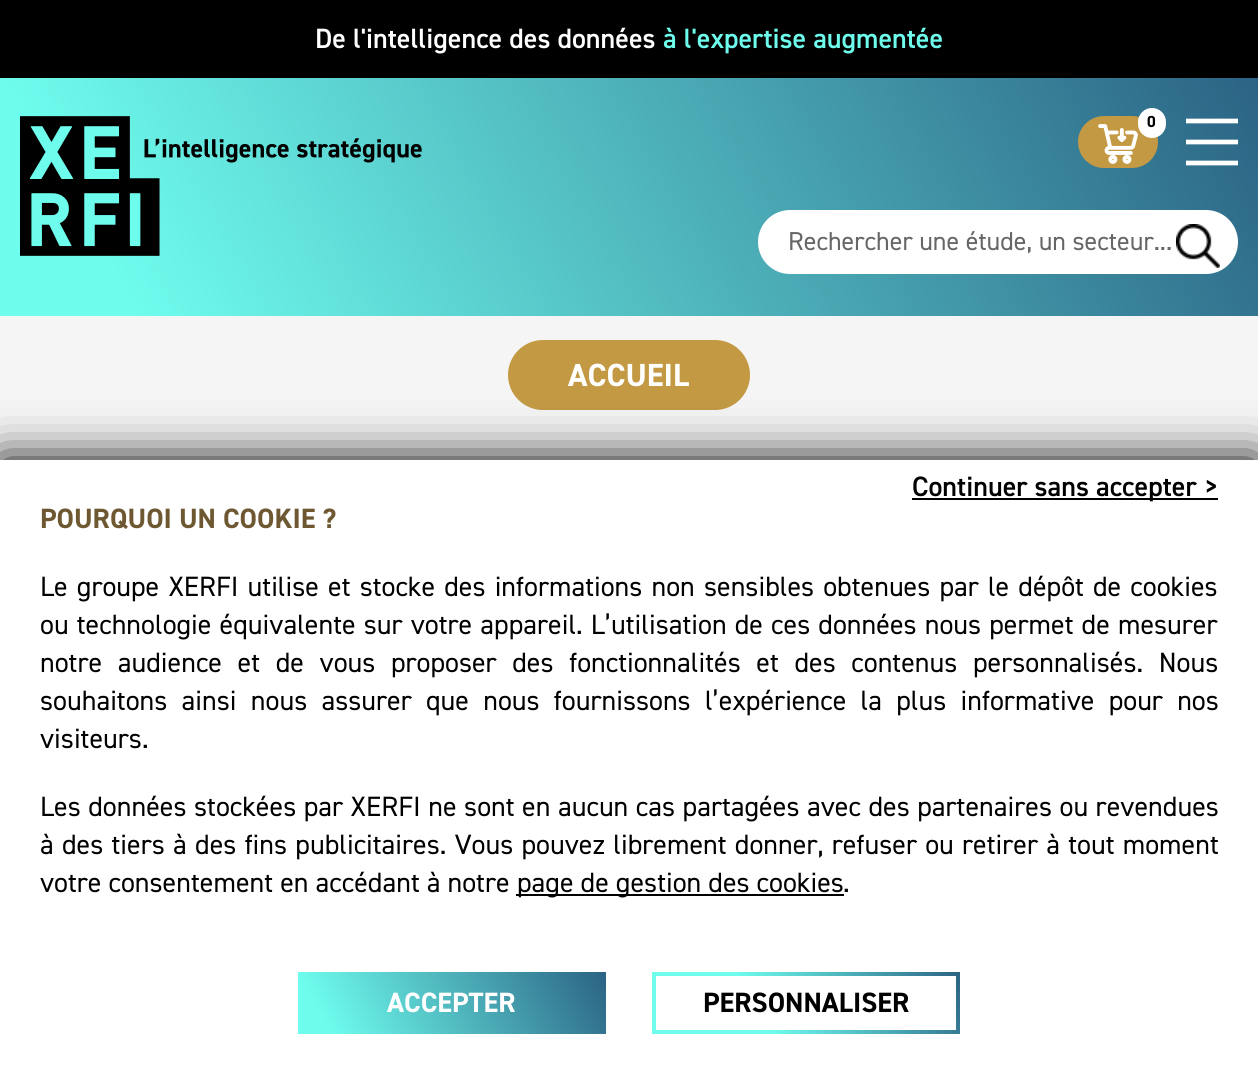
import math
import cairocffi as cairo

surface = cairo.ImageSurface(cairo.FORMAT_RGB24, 1258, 1084)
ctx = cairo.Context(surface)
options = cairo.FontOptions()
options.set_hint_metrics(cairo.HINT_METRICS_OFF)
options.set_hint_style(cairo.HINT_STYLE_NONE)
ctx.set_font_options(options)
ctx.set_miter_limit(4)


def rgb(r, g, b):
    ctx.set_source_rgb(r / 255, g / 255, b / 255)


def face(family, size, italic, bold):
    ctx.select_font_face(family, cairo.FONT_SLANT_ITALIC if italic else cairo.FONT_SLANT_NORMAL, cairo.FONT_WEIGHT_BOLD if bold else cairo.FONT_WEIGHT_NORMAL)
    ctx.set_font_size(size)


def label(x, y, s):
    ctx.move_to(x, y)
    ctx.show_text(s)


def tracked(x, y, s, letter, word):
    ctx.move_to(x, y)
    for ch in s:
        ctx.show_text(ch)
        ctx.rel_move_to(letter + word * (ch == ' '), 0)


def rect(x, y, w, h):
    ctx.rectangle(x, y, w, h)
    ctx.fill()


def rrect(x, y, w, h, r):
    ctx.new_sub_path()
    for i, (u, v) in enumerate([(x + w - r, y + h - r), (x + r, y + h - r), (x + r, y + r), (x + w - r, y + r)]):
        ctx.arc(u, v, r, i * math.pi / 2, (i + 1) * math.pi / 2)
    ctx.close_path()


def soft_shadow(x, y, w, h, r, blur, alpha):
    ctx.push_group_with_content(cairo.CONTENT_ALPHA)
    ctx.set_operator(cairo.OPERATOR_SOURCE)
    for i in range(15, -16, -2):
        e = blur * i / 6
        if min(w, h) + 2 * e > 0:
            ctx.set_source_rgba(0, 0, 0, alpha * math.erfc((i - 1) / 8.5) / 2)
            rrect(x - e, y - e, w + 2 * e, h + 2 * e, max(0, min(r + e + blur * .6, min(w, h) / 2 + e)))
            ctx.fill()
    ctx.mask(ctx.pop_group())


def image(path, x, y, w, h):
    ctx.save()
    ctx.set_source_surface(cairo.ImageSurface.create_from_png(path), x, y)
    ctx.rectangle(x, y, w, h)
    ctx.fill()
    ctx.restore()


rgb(245, 245, 245)
ctx.paint()
rgb(0, 0, 0)
rect(0, 0, 1258, 78)
face('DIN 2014 SemiBold', 28, 0, 0)
rgb(255, 255, 255)
label(315, 48, 'De l\'intelligence des données')
rgb(110, 252, 237)
label(663, 48, 'à l\'expertise augmentée')
gradient = cairo.LinearGradient(105, 498, 1153, -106)
gradient.add_color_stop_rgba(0.1, 0.431, 0.988, 0.929, 1)
gradient.add_color_stop_rgba(1, 0.169, 0.388, 0.518, 1)
ctx.set_source(gradient)
rect(0, 78, 1258, 238)
image('image0.png', 20, 116, 402, 140)
rgb(195, 153, 68)
rrect(1078, 116, 80, 52, 26)
ctx.fill()
rgb(255, 255, 255)
rrect(1138, 108, 28, 30, 14)
ctx.fill()
face('DIN 2014', 16, 0, 1)
rgb(0, 0, 0)
label(1147, 127, '0')
image('image1.png', 1098, 124, 40, 40)
ctx.new_path()
ctx.move_to(1186, 121)
ctx.line_to(1238, 121)
ctx.move_to(1186, 142)
ctx.line_to(1238, 142)
ctx.move_to(1186, 163)
ctx.line_to(1238, 163)
rgb(255, 255, 255)
ctx.set_line_width(4.7)
ctx.stroke()
rrect(758, 210, 480, 64, 32)
ctx.fill()
face('DIN 2014', 26, 0, 0)
rgb(102, 102, 102)
label(788, 250, 'Rechercher une étude, un secteur...')
image('image2.png', 1176, 224, 44, 44)
rgb(195, 153, 68)
rrect(508, 340, 242, 70, 35)
ctx.fill()
face('DIN 2014', 32, 0, 1)
rgb(255, 255, 255)
label(568, 386, 'ACCUEIL')
rgb(0, 0, 0)
soft_shadow(0, 460, 1258, 624, 0, 24, 1)
rgb(255, 255, 255)
rect(0, 460, 1258, 624)
rgb(0, 0, 0)
rect(912, 498, 306, 2)
face('DIN 2014 SemiBold', 28, 0, 0)
label(912, 496, 'Continuer sans accepter >')
face('DIN 2014', 28, 0, 1)
rgb(109, 88, 50)
label(40, 528, 'POURQUOI UN COOKIE ?')
face('DIN 2014', 28, 0, 0)
rgb(0, 0, 0)
tracked(40, 596, 'Le groupe XERFI utilise et stocke des informations non sensibles obtenues par le dépôt de cookies', 0, 2.1)
tracked(40, 634, 'ou technologie équivalente sur votre appareil. L’utilisation de ces données nous permet de mesurer', 0, 1.1)
tracked(40, 672, 'notre audience et de vous proposer des fonctionnalités et des contenus personnalisés. Nous', 0, 8.6)
tracked(40, 710, 'souhaitons ainsi nous assurer que nous fournissons l’expérience la plus informative pour nos', 0, 7.25)
label(40, 748, 'visiteurs.')
tracked(40, 816, 'Les données stockées par XERFI ne sont en aucun cas partagées avec des partenaires ou revendues', 0, 0.5)
tracked(40, 854, 'à des tiers à des fins publicitaires. Vous pouvez librement donner, refuser ou retirer à tout moment', 0, 1.25)
label(40, 892, 'votre consentement en accédant à notre')
rect(516, 894, 328, 2)
label(517, 892, 'page de gestion des cookies')
label(843, 892, '.')
gradient = cairo.LinearGradient(323, 1077, 581, 929)
gradient.add_color_stop_rgba(0.1, 0.431, 0.988, 0.929, 1)
gradient.add_color_stop_rgba(1, 0.169, 0.388, 0.518, 1)
ctx.set_source(gradient)
rect(298, 972, 308, 62)
face('DIN 2014', 28, 0, 1)
rgb(255, 255, 255)
label(387, 1012, 'ACCEPTER')
gradient = cairo.LinearGradient(677, 1077, 935, 929)
gradient.add_color_stop_rgba(0.35, 0.431, 0.988, 0.929, 1)
gradient.add_color_stop_rgba(1, 0.169, 0.388, 0.518, 1)
ctx.set_source(gradient)
rect(652, 972, 308, 62)
rgb(255, 255, 255)
rect(656, 976, 300, 54)
rgb(0, 0, 0)
label(703, 1012, 'PERSONNALISER')
surface.write_to_png('render.png')
